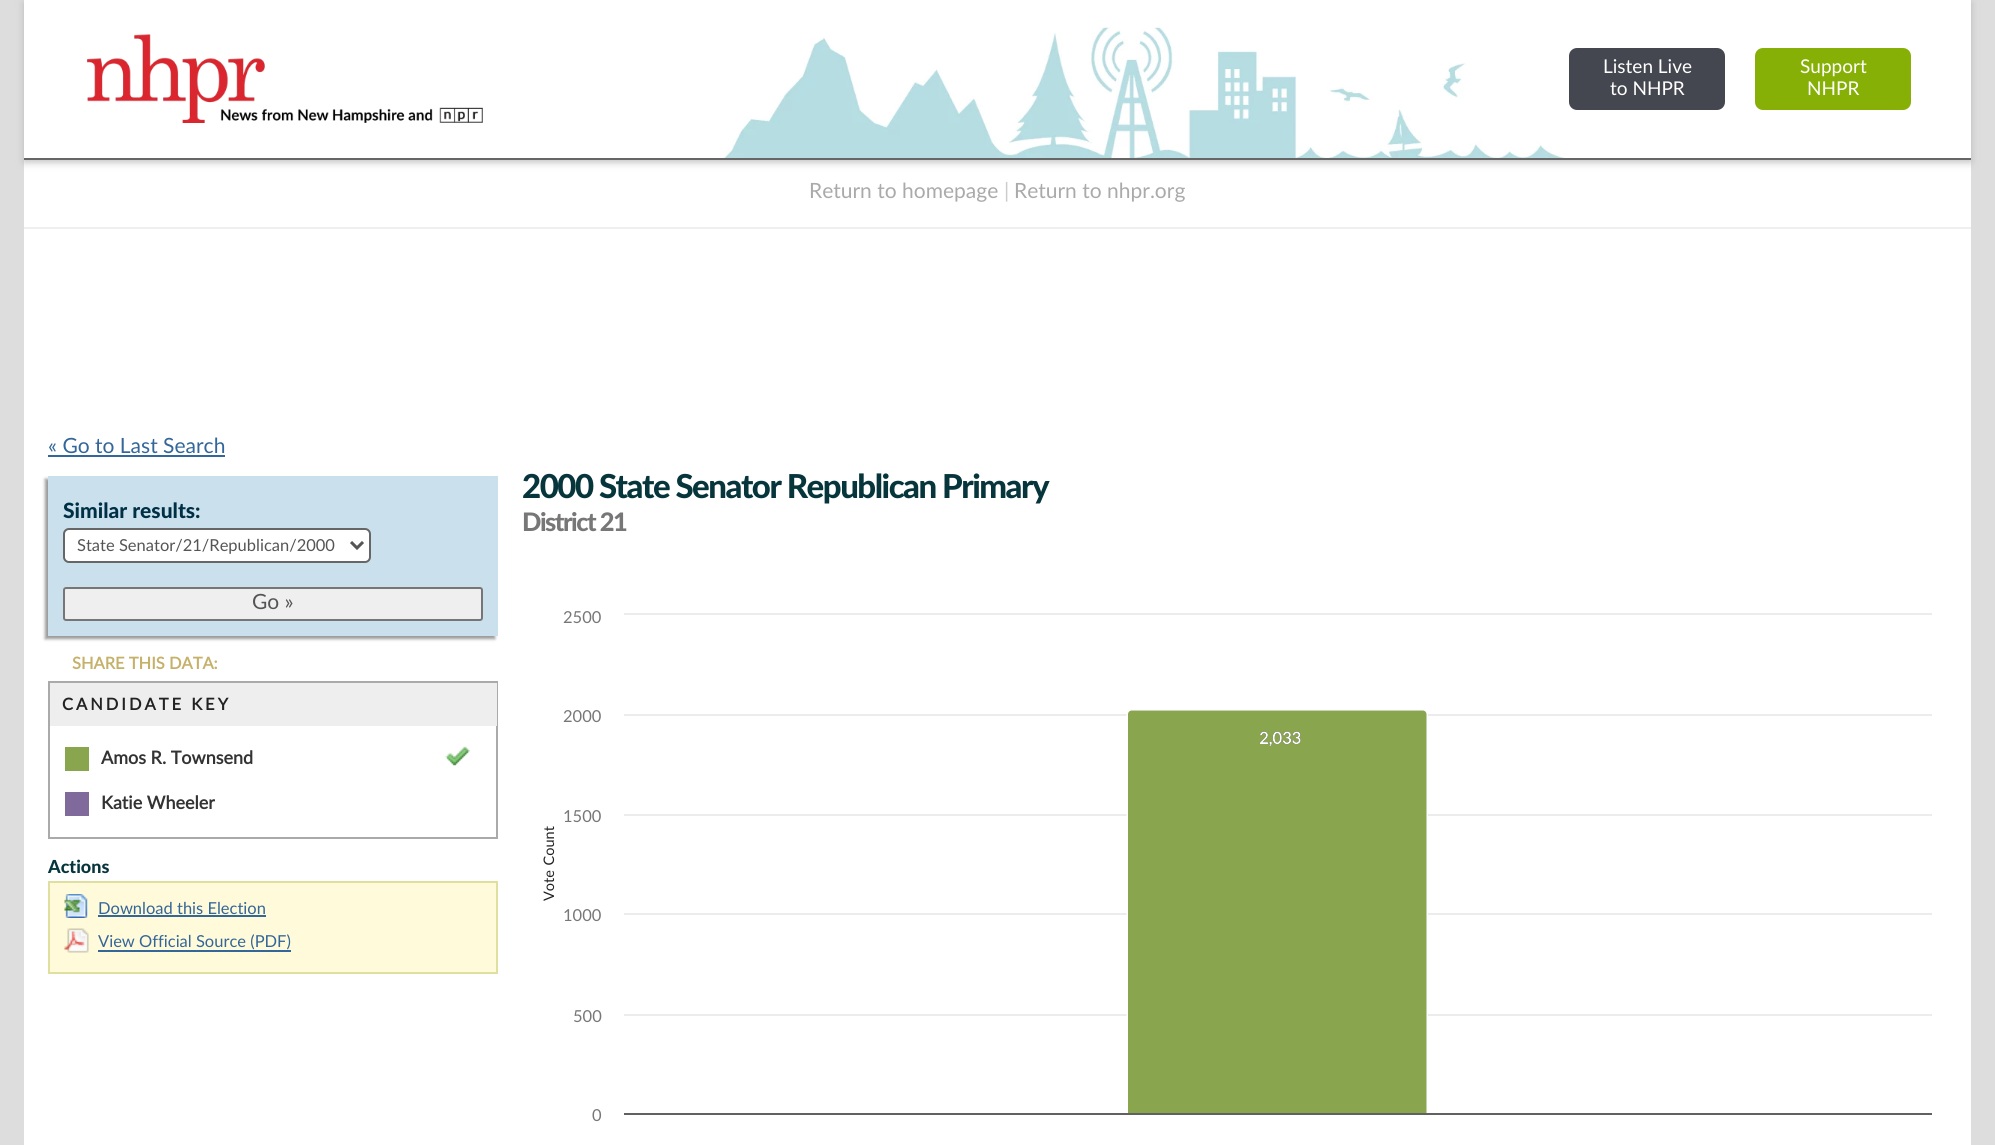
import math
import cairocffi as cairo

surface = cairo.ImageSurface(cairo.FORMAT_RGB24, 1995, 1145)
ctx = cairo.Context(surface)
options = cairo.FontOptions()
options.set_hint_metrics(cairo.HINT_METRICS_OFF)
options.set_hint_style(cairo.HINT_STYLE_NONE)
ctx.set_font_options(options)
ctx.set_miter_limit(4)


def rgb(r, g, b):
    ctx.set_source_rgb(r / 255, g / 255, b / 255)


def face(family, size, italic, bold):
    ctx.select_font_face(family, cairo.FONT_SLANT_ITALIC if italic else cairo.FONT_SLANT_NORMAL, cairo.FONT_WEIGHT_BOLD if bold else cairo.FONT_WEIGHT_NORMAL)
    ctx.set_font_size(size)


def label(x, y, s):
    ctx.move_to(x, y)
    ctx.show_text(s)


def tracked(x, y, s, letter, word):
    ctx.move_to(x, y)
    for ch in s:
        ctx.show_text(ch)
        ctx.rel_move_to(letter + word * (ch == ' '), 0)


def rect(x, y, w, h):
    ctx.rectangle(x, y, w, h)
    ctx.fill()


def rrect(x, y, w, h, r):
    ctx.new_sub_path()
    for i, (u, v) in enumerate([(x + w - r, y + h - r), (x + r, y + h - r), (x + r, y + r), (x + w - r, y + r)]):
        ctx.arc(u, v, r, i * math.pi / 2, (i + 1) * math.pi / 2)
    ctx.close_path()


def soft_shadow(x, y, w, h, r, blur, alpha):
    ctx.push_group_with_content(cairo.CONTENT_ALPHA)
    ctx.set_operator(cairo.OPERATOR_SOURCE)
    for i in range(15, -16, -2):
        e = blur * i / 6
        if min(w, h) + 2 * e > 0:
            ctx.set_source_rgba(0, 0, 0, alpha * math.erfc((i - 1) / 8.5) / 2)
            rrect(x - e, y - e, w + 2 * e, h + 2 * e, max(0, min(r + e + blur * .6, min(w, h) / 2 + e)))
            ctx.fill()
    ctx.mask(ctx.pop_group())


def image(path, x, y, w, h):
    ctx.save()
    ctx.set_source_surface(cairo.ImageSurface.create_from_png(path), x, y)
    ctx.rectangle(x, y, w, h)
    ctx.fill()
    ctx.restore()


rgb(221, 221, 221)
ctx.paint()
rgb(255, 255, 255)
rect(24, 0, 1947, 1145)
ctx.save()
ctx.set_fill_rule(cairo.FILL_RULE_EVEN_ODD)
ctx.new_path()
ctx.move_to(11, 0)
ctx.line_to(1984, 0)
ctx.line_to(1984, 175)
ctx.line_to(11, 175)
ctx.close_path()
ctx.move_to(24, 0)
ctx.line_to(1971, 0)
ctx.line_to(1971, 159)
ctx.line_to(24, 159)
ctx.close_path()
ctx.clip()
rgb(187, 187, 187)
soft_shadow(24, 3, 1947, 159, 0, 4, 1)
ctx.restore()
image('image0.png', 723, 26, 847, 132)
rgb(102, 102, 102)
rect(24, 158, 1947, 2)
image('image1.png', 87, 34, 396, 89)
rgb(68, 71, 80)
rrect(1569, 48, 156, 62, 8)
ctx.fill()
face('Lato', 19, 0, 0)
rgb(255, 255, 255)
label(1603, 73, 'Listen Live')
label(1610, 95, 'to NHPR')
rgb(135, 176, 6)
rrect(1755, 48, 156, 62, 8)
ctx.fill()
rgb(255, 255, 255)
label(1800, 73, 'Support')
label(1807, 95, 'NHPR')
rgb(239, 239, 239)
rect(24, 227, 1947, 2)
face('Lato', 21, 0, 0)
rgb(170, 170, 170)
label(809, 198, 'Return to homepage')
rgb(204, 204, 204)
label(1004, 198, '|')
rgb(170, 170, 170)
label(1014, 198, 'Return to nhpr.org')
rgb(51, 102, 153)
label(48, 453, '« Go to Last Search')
rect(48, 455, 177, 2)
rgb(153, 153, 153)
soft_shadow(45, 479, 450, 160, 0, 1.5, 1)
rgb(203, 224, 237)
rect(48, 476, 450, 160)
face('Lato Black', 21, 0, 0)
rgb(0, 48, 69)
label(63, 518, 'Similar results:')
rgb(255, 255, 255)
rrect(64, 529, 306, 33, 5)
ctx.fill_preserve()
rgb(102, 102, 102)
ctx.stroke()
ctx.new_path()
ctx.move_to(351, 542)
ctx.line_to(357, 548)
ctx.line_to(363, 542)
rgb(85, 85, 85)
ctx.set_line_width(3)
ctx.stroke()
face('Lato', 16.5, 0, 0)
label(77, 551, 'State Senator/21/Republican/2000')
rgb(239, 239, 239)
rrect(64, 588, 418, 32, 2)
ctx.fill_preserve()
rgb(118, 118, 118)
ctx.set_line_width(2)
ctx.stroke()
face('Lato', 21, 0, 0)
rgb(85, 85, 85)
label(252, 609, 'Go »')
face('Lato', 16.5, 0, 1)
rgb(198, 177, 107)
label(72, 669, 'SHARE THIS DATA:')
ctx.rectangle(49, 682, 448, 156)
rgb(170, 170, 170)
ctx.stroke()
rgb(238, 238, 238)
rect(50, 683, 447, 43)
rgb(34, 34, 34)
tracked(62, 710, 'CANDIDATE KEY', 3, 0)
image('image2.png', 445, 746, 25, 20)
rgb(137, 165, 78)
rect(65, 747, 24, 24)
face('Lato', 18, 0, 1)
rgb(51, 51, 51)
label(101, 764, 'Amos R. Townsend')
rgb(128, 105, 155)
rect(65, 792, 24, 24)
rgb(51, 51, 51)
label(101, 809, 'Katie Wheeler')
face('Lato Black', 18, 0, 0)
rgb(6, 53, 60)
label(48, 873, 'Actions')
rgb(255, 250, 218)
ctx.rectangle(49, 882, 448, 91)
ctx.fill_preserve()
rgb(223, 224, 160)
ctx.stroke()
image('image3.png', 64, 894, 24, 24)
face('Lato', 16.5, 0, 0)
rgb(51, 102, 153)
label(98, 914, 'Download this Election')
rect(98, 915, 168, 2)
image('image4.png', 64, 928, 25, 25)
label(98, 947, 'View Official Source (PDF)')
rect(98, 950, 193, 2)
face('Lato Black', 33, 0, 0)
rgb(6, 53, 60)
tracked(522, 498, '2000 State Senator Republican Primary', -1.5, 0)
face('Lato Black', 25.5, 0, 0)
rgb(119, 119, 119)
tracked(522, 531, 'District 21', -1.5, 0)
face('Lato', 16.5, 0, 0)
label(563, 623, '2500')
image('image5.png', 624, 613, 1308, 502)
label(563, 722, '2000')
face('Lato', 16.5, 0, 1)
rgb(0, 0, 0)
label(1259, 744, '2,033')
rgb(255, 255, 255)
label(1259, 744, '2,033')
face('Lato', 16.5, 0, 0)
rgb(119, 119, 119)
label(563, 822, '1500')
face('Lato', 14.5, 0, 0)
rgb(34, 34, 34)
ctx.save()
ctx.translate(554, 901)
ctx.rotate(-90 * math.pi / 180)
tracked(0, 0, 'Vote Count', 0, 1)
ctx.restore()
face('Lato', 16.5, 0, 0)
rgb(119, 119, 119)
label(563, 921, '1000')
label(573, 1022, '500')
label(592, 1121, '0')
surface.write_to_png('render.png')
